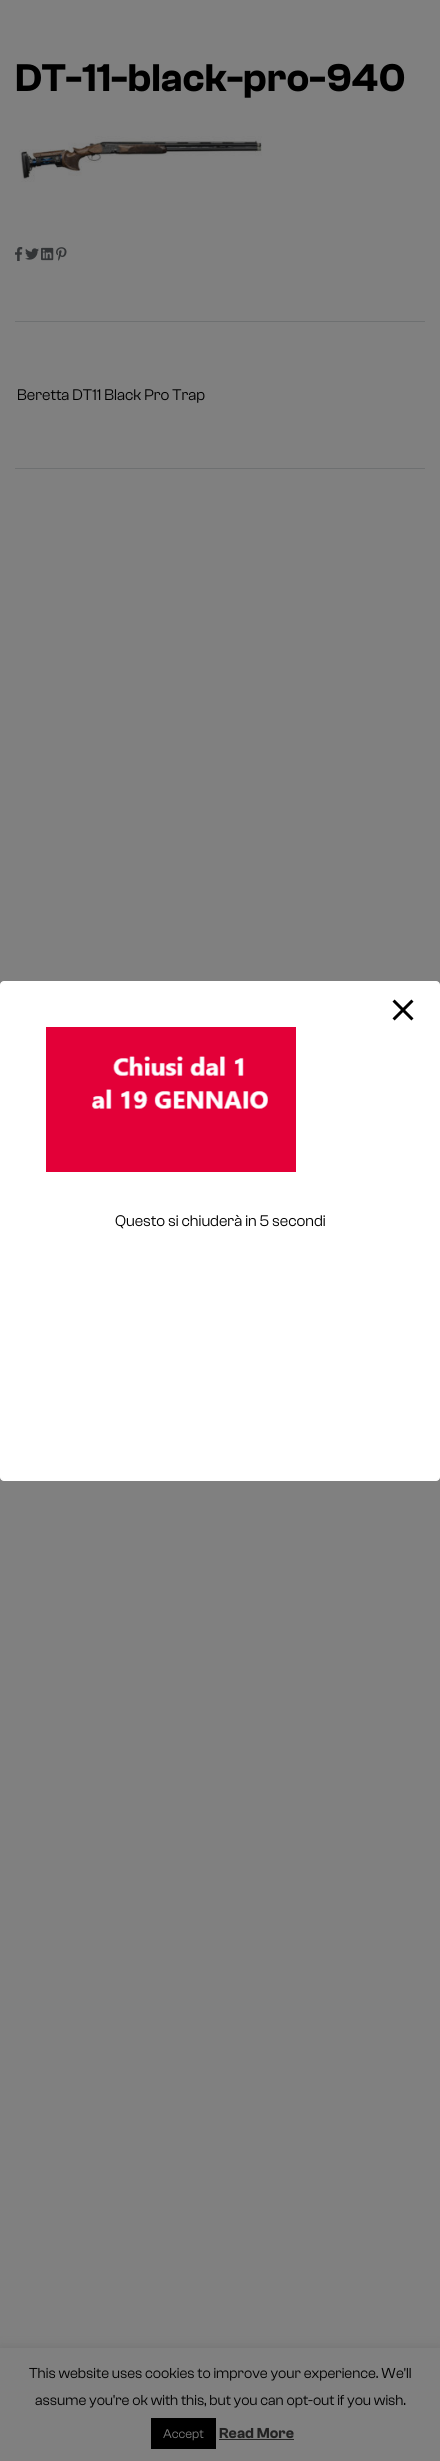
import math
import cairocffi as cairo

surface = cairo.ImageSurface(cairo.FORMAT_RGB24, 440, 2461)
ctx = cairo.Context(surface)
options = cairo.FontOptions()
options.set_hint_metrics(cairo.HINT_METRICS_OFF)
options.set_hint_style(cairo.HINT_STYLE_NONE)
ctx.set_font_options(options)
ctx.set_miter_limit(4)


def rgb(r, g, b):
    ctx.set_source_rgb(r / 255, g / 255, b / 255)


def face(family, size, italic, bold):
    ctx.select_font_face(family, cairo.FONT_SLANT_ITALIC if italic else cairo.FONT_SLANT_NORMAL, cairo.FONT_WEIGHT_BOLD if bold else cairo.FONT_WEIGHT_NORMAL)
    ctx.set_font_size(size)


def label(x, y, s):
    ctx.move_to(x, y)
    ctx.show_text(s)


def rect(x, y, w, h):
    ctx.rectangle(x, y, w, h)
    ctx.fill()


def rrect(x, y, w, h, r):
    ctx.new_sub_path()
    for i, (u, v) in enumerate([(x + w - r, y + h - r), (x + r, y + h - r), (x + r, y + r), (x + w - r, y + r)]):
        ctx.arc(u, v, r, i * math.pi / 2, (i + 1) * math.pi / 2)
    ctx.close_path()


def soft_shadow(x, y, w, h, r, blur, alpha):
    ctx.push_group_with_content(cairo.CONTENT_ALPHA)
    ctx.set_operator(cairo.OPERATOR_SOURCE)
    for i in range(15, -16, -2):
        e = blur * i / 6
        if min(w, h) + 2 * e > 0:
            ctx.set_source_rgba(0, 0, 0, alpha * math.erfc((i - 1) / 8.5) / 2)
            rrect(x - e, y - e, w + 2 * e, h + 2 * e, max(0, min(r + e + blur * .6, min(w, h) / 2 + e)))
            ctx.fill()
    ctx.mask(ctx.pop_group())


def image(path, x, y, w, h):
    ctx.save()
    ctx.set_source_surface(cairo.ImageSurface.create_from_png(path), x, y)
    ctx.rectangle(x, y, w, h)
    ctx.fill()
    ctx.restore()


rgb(128, 128, 128)
ctx.paint()
face('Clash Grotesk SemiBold', 40, 0, 0)
rgb(0, 0, 0)
label(15, 91, 'DT-11-black-pro-940')
image('image0.png', 19, 136, 243, 46)
image('image1.png', 15, 247, 8, 14)
image('image2.png', 25, 248, 14, 12)
image('image3.png', 41, 247, 13, 14)
image('image4.png', 56, 247, 11, 14)
rgb(110, 112, 113)
rect(15, 321, 410, 1)
rect(15, 468, 410, 1)
face('Clash Grotesk', 16, 0, 0)
rgb(0, 0, 0)
label(17, 400, 'Beretta DT11 Black Pro Trap')
rgb(255, 255, 255)
rrect(0.5, 981.5, 439, 499, 3.5)
ctx.fill_preserve()
ctx.set_line_width(1)
ctx.stroke()
image('image5.png', 392, 999, 22, 22)
image('image6.png', 46, 1027, 250, 145)
rgb(0, 0, 0)
label(115, 1226, 'Questo si chiuderà in 5 secondi')
rgb(86, 86, 86)
soft_shadow(0, 2347, 440, 113, 0, 5, 0.3)
rgb(128, 128, 128)
rect(0, 2348, 440, 113)
face('Clash Grotesk', 15, 0, 0)
rgb(0, 0, 0)
label(29, 2378, 'This website uses cookies to improve your experience. We\'ll')
label(35, 2405, 'assume you\'re ok with this, but you can opt-out if you wish.')
rect(151, 2418, 65, 31)
face('Clash Grotesk', 13, 0, 0)
rgb(128, 128, 128)
label(163, 2438, 'Accept')
face('Clash Grotesk SemiBold', 15, 0, 0)
rgb(34, 34, 34)
label(219, 2438, 'Read More')
rect(219, 2439, 75, 1)
surface.write_to_png('render.png')
